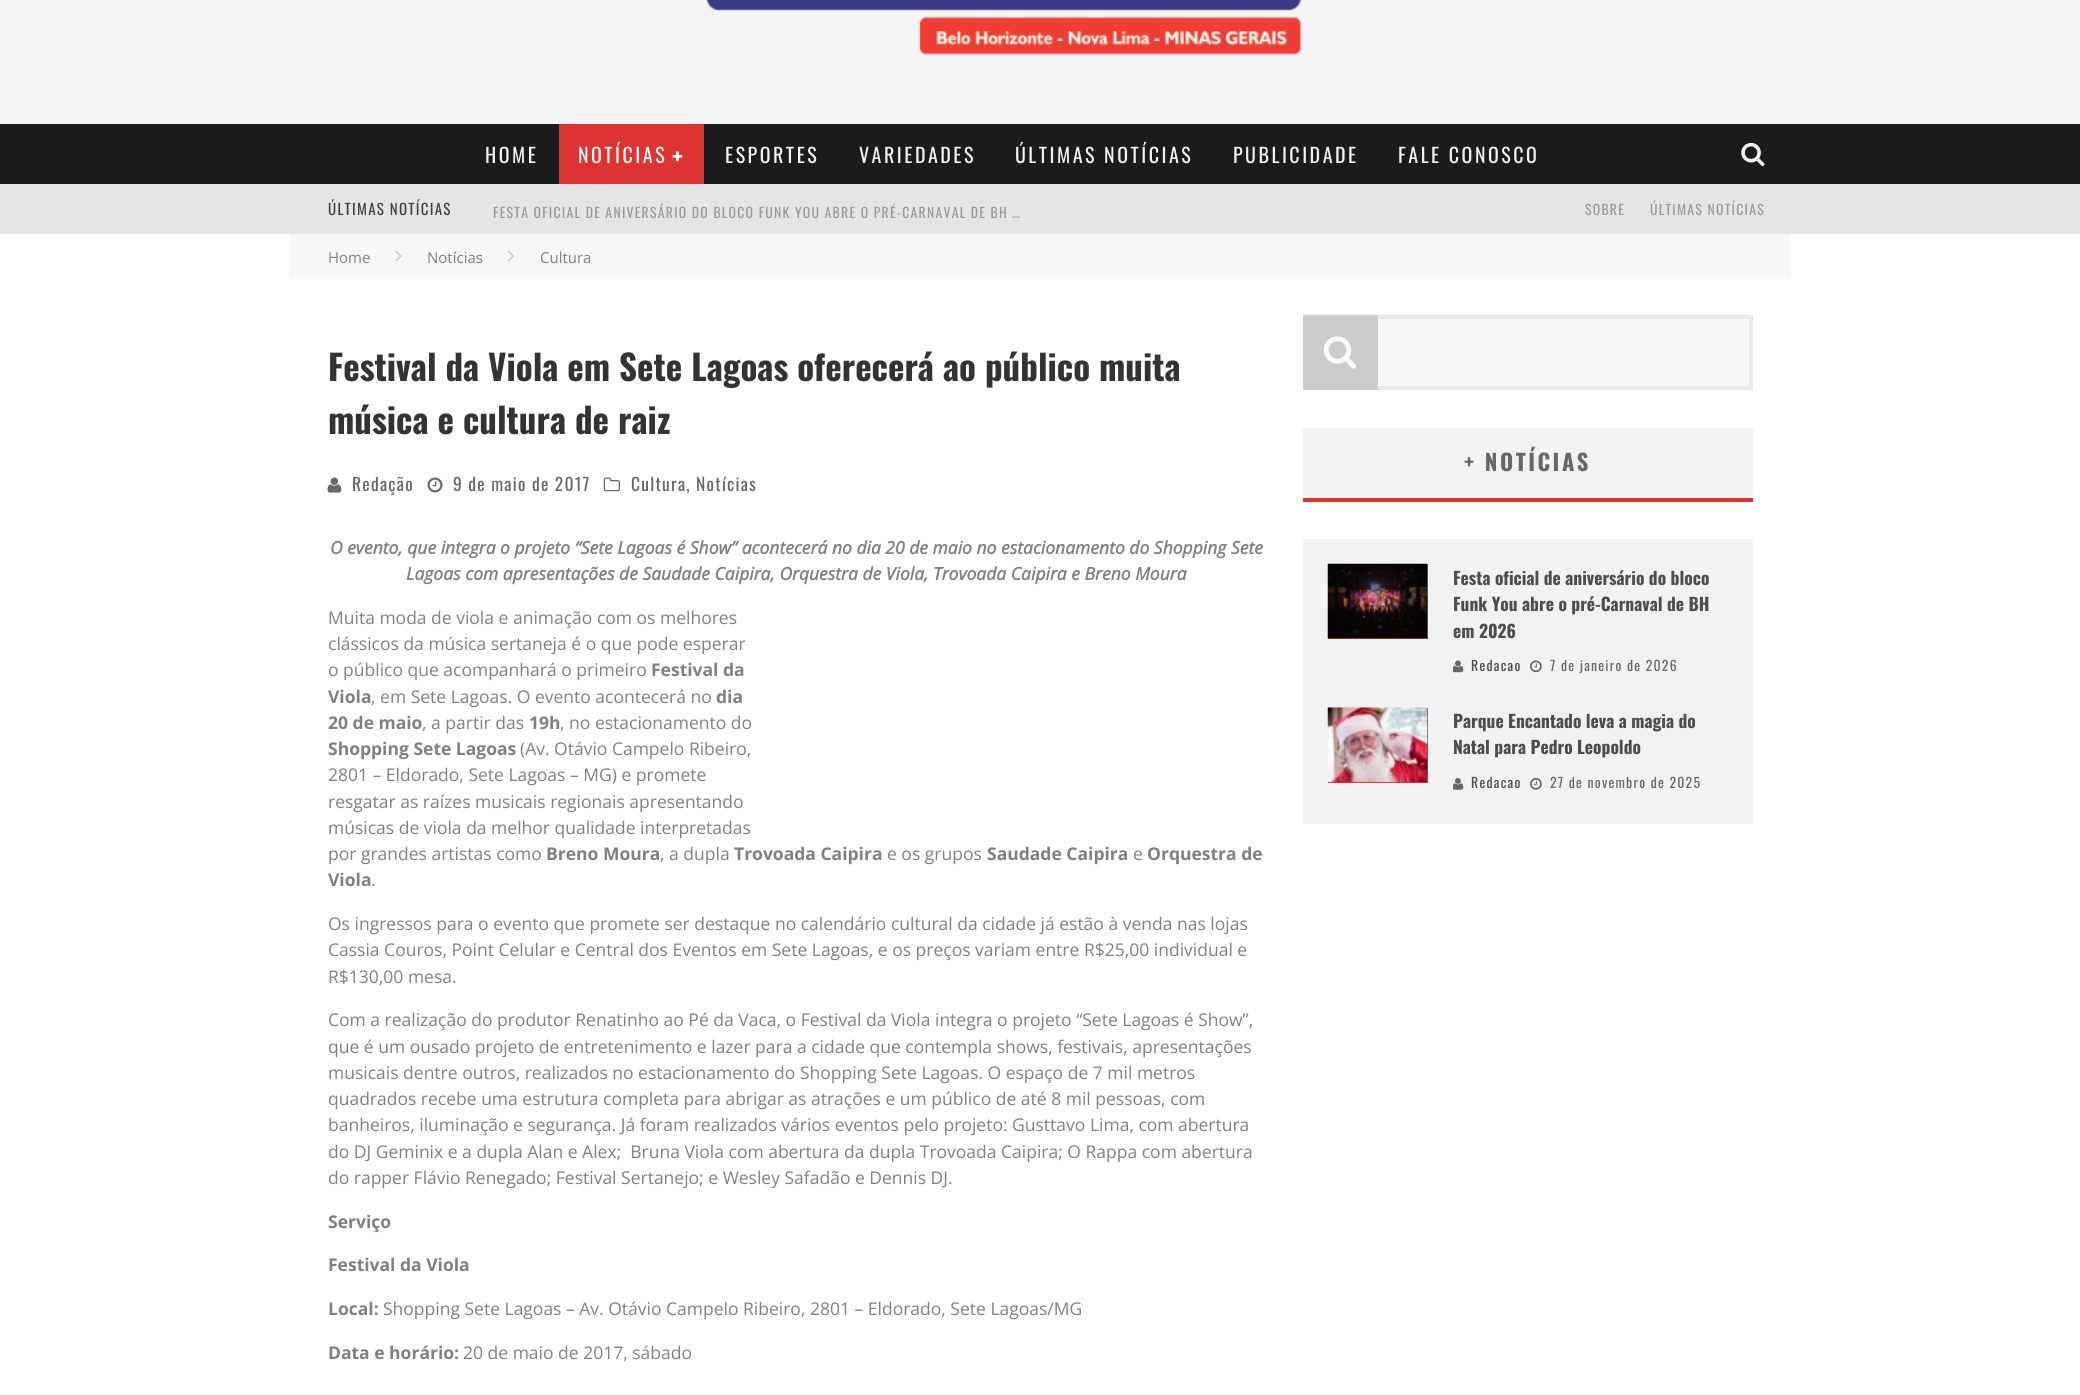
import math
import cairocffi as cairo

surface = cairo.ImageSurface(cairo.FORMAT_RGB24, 2080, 1395)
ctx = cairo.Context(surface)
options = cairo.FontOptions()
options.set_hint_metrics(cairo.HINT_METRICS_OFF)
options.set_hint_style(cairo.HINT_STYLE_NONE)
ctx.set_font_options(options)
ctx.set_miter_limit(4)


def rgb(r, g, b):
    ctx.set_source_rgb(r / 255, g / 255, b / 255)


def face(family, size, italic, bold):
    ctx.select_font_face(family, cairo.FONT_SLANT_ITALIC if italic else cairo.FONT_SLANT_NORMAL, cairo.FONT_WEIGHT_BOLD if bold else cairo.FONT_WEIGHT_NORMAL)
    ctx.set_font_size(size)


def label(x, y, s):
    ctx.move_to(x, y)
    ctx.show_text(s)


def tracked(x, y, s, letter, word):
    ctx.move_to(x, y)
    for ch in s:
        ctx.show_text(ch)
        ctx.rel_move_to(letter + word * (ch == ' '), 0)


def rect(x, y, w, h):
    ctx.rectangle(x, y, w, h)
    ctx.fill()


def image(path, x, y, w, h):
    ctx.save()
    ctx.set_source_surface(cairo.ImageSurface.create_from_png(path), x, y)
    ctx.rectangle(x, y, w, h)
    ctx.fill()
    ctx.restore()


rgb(255, 255, 255)
ctx.paint()
rgb(245, 245, 245)
rect(0, 0, 2080, 124)
image('image0.png', 706, 0, 596, 55)
rgb(27, 27, 27)
rect(0, 124, 2080, 60)
face('Oswald', 20, 0, 0)
rgb(242, 242, 242)
tracked(485, 163, 'HOME', 2.5, 0)
rgb(221, 51, 51)
rect(559, 124, 145, 60)
rgb(250, 250, 250)
tracked(578, 163, 'NOTÍCIAS', 2.5, 0)
image('image1.png', 672, 151, 11, 11)
rgb(242, 242, 242)
tracked(725, 163, 'ESPORTES', 2.5, 0)
tracked(859, 163, 'VARIEDADES', 2.5, 0)
tracked(1015, 163, 'ÚLTIMAS NOTÍCIAS', 2.5, 0)
tracked(1233, 163, 'PUBLICIDADE', 2.5, 0)
tracked(1398, 163, 'FALE CONOSCO', 2.5, 0)
image('image2.png', 1741, 142, 24, 25)
rgb(229, 229, 229)
rect(0, 184, 2080, 50)
face('Oswald', 15, 0, 0)
rgb(66, 66, 66)
tracked(328, 215, 'ÚLTIMAS NOTÍCIAS', 1.25, 0)
face('Oswald', 13.75, 0, 0)
rgb(153, 153, 153)
tracked(493, 218, 'FESTA OFICIAL DE ANIVERSÁRIO DO BLOCO FUNK YOU ABRE O PRÉ-CARNAVAL DE BH …', 1.25, 0)
tracked(1585, 215, 'SOBRE', 1.25, 0)
tracked(1650, 215, 'ÚLTIMAS NOTÍCIAS', 1.25, 0)
rgb(247, 247, 247)
rect(290, 234, 1500, 44)
rgb(243, 243, 243)
rect(290, 276, 1500, 1)
face('Open Sans', 15, 0, 0)
rgb(128, 128, 128)
label(328, 263, 'Home')
image('image3.png', 395, 250, 7, 12)
label(427, 263, 'Notícias')
image('image4.png', 507, 250, 7, 12)
label(540, 263, 'Cultura')
face('Oswald', 35, 0, 1)
rgb(51, 51, 51)
label(328, 381, 'Festival da Viola em Sete Lagoas oferecerá ao público muita')
label(328, 434, 'música e cultura de raiz')
image('image5.png', 327, 477, 15, 16)
face('Oswald', 17.5, 0, 0)
rgb(103, 103, 103)
tracked(352, 491, 'Redação', 1.25, 0)
image('image6.png', 427, 477, 16, 16)
tracked(453, 491, '9 de maio de 2017', 1.25, 0)
image('image7.png', 603, 477, 17, 15)
tracked(631, 491, 'Cultura, Notícias', 1.25, 0)
face('Open Sans', 17.5, 1, 1)
rgb(128, 128, 128)
label(330, 554, 'O evento, que integra o projeto “Sete Lagoas é Show” acontecerá no dia 20 de maio no estacionamento do Shopping Sete')
label(406, 580, 'Lagoas com apresentações de Saudade Caipira, Orquestra de Viola, Trovoada Caipira e Breno Moura')
face('Open Sans', 17.5, 0, 0)
label(328, 624, 'Muita moda de viola e animação com os melhores')
label(328, 650, 'clássicos da música sertaneja é o que pode esperar')
label(328, 676, 'o público que acompanhará o primeiro')
face('Open Sans', 17.5, 0, 1)
label(651, 676, 'Festival da')
label(328, 703, 'Viola')
face('Open Sans', 17.5, 0, 0)
label(371, 703, ', em Sete Lagoas. O evento acontecerá no')
face('Open Sans', 17.5, 0, 1)
label(716, 703, 'dia')
label(328, 729, '20 de maio')
face('Open Sans', 17.5, 0, 0)
label(422, 729, ', a partir das')
face('Open Sans', 17.5, 0, 1)
label(529, 729, '19h')
face('Open Sans', 17.5, 0, 0)
label(560, 729, ', no estacionamento do')
face('Open Sans', 17.5, 0, 1)
label(328, 755, 'Shopping Sete Lagoas')
face('Open Sans', 17.5, 0, 0)
label(520, 755, '(Av. Otávio Campelo Ribeiro,')
label(328, 781, '2801 – Eldorado, Sete Lagoas – MG) e promete')
label(328, 808, 'resgatar as raízes musicais regionais apresentando')
label(328, 834, 'músicas de viola da melhor qualidade interpretadas')
label(328, 860, 'por grandes artistas como')
face('Open Sans', 17.5, 0, 1)
label(546, 860, 'Breno Moura')
face('Open Sans', 17.5, 0, 0)
label(660, 860, ', a dupla')
face('Open Sans', 17.5, 0, 1)
label(734, 860, 'Trovoada Caipira')
face('Open Sans', 17.5, 0, 0)
label(887, 860, 'e os grupos')
face('Open Sans', 17.5, 0, 1)
label(987, 860, 'Saudade Caipira')
face('Open Sans', 17.5, 0, 0)
label(1133, 860, 'e')
face('Open Sans', 17.5, 0, 1)
label(1147, 860, 'Orquestra de')
label(328, 886, 'Viola')
face('Open Sans', 17.5, 0, 0)
label(371, 886, '.')
label(328, 930, 'Os ingressos para o evento que promete ser destaque no calendário cultural da cidade já estão à venda nas lojas')
label(328, 956, 'Cassia Couros, Point Celular e Central dos Eventos em Sete Lagoas, e os preços variam entre R$25,00 individual e')
label(328, 983, 'R$130,00 mesa.')
label(328, 1026, 'Com a realização do produtor Renatinho ao Pé da Vaca, o Festival da Viola integra o projeto “Sete Lagoas é Show”,')
label(328, 1053, 'que é um ousado projeto de entretenimento e lazer para a cidade que contempla shows, festivais, apresentações')
label(328, 1079, 'musicais dentre outros, realizados no estacionamento do Shopping Sete Lagoas. O espaço de 7 mil metros')
label(328, 1105, 'quadrados recebe uma estrutura completa para abrigar as atrações e um público de até 8 mil pessoas, com')
label(328, 1131, 'banheiros, iluminação e segurança. Já foram realizados vários eventos pelo projeto: Gusttavo Lima, com abertura')
label(328, 1158, 'do DJ Geminix e a dupla Alan e Alex;  Bruna Viola com abertura da dupla Trovoada Caipira; O Rappa com abertura')
label(328, 1184, 'do rapper Flávio Renegado; Festival Sertanejo; e Wesley Safadão e Dennis DJ.')
face('Open Sans', 17.5, 0, 1)
label(328, 1228, 'Serviço')
label(328, 1271, 'Festival da Viola')
label(328, 1315, 'Local:')
face('Open Sans', 17.5, 0, 0)
label(383, 1315, 'Shopping Sete Lagoas – Av. Otávio Campelo Ribeiro, 2801 – Eldorado, Sete Lagoas/MG')
face('Open Sans', 17.5, 0, 1)
label(328, 1359, 'Data e horário:')
face('Open Sans', 17.5, 0, 0)
label(463, 1359, '20 de maio de 2017, sábado')
rgb(247, 247, 247)
rect(1378, 319, 371, 67)
ctx.rectangle(1305, 317, 446, 71)
rgb(233, 233, 233)
ctx.set_line_width(4)
ctx.stroke()
rgb(204, 204, 204)
rect(1303, 315, 75, 75)
image('image8.png', 1323, 336, 34, 33)
rgb(242, 242, 242)
rect(1303, 428, 450, 70)
rgb(221, 51, 51)
rect(1303, 498, 450, 4)
face('Oswald', 22.5, 0, 1)
rgb(103, 103, 103)
tracked(1464, 471, '+ NOTÍCIAS', 2.5, 0)
rgb(242, 242, 242)
rect(1303, 539, 450, 285)
rgb(221, 51, 51)
rect(1328, 564, 100, 75)
image('image9.png', 1327, 563, 101, 76)
face('Oswald', 17.5, 0, 1)
rgb(77, 77, 77)
label(1453, 585, 'Festa oficial de aniversário do bloco')
label(1453, 611, 'Funk You abre o pré-Carnaval de BH')
label(1453, 638, 'em 2026')
image('image10.png', 1453, 660, 11, 13)
face('Oswald', 13.75, 0, 0)
tracked(1471, 671, 'Redacao', 1.25, 0)
image('image11.png', 1530, 660, 12, 13)
rgb(103, 103, 103)
tracked(1550, 671, '7 de janeiro de 2026', 1.25, 0)
rgb(221, 51, 51)
rect(1328, 708, 100, 75)
image('image12.png', 1327, 707, 101, 76)
face('Oswald', 17.5, 0, 1)
rgb(77, 77, 77)
label(1453, 728, 'Parque Encantado leva a magia do')
label(1453, 754, 'Natal para Pedro Leopoldo')
image('image13.png', 1453, 778, 11, 12)
face('Oswald', 13.75, 0, 0)
tracked(1471, 788, 'Redacao', 1.25, 0)
image('image14.png', 1530, 778, 12, 12)
rgb(103, 103, 103)
tracked(1550, 788, '27 de novembro de 2025', 1.25, 0)
surface.write_to_png('render.png')
